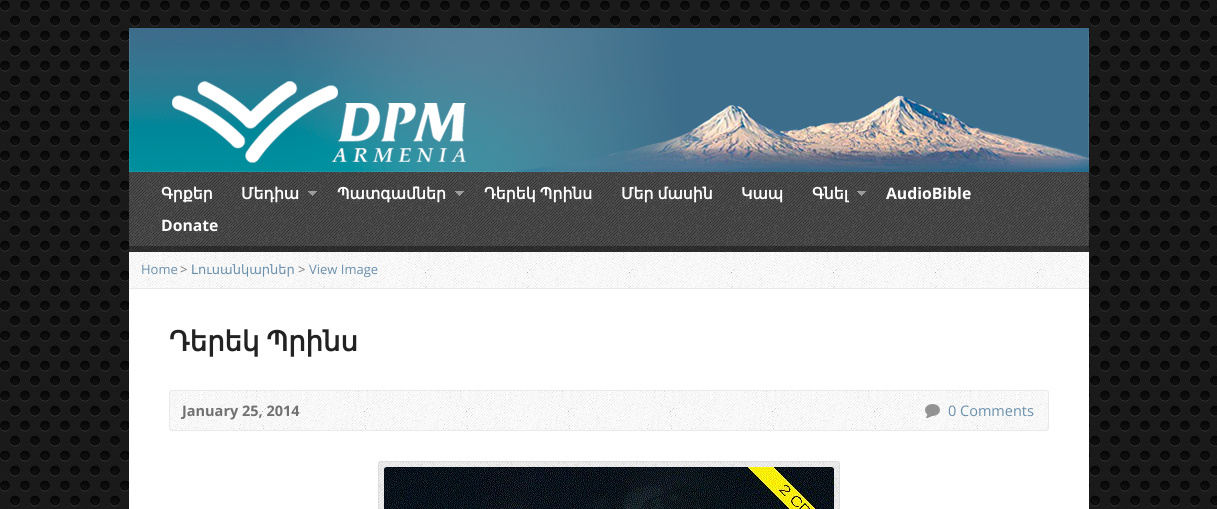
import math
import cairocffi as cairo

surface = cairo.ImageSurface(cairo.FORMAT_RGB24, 1217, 509)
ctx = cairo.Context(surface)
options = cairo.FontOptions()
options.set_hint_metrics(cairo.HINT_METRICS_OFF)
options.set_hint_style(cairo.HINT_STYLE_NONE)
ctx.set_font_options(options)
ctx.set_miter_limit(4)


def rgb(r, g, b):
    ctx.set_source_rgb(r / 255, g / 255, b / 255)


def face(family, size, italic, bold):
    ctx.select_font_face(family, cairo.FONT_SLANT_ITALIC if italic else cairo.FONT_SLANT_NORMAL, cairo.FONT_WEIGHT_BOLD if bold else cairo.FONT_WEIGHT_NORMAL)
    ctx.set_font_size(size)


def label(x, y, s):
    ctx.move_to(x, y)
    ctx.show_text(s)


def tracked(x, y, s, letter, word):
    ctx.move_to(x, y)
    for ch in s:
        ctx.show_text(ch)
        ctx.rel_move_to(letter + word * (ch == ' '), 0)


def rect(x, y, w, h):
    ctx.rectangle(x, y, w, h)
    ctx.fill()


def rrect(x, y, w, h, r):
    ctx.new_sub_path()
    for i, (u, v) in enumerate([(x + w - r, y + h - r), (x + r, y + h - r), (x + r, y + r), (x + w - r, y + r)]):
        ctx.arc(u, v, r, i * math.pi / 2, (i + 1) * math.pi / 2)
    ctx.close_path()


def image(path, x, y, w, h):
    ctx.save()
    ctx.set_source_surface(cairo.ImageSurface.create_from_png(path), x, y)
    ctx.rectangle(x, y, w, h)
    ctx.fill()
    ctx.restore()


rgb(255, 255, 255)
ctx.paint()
image('image0.png', 0, 0, 1217, 509)
rgb(255, 255, 255)
rrect(129, 28, 960, 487, 6)
ctx.fill()
image('image1.png', 129, 28, 960, 144)
rgb(51, 51, 51)
rect(129, 172, 960, 80)
image('image2.png', 129, 172, 960, 80)
face('DejaVu Sans', 15.75, 0, 1)
rgb(255, 255, 255)
label(161, 199, 'Գրքեր')
label(241, 199, 'Մեդիա')
image('image3.png', 308, 191, 9, 5)
label(337, 199, 'Պատգամներ')
image('image4.png', 455, 191, 9, 5)
tracked(484, 199, 'Դերեկ Պրինս', 0, -1)
tracked(621, 199, 'Մեր մասին', 0, -1)
label(741, 199, 'Կապ')
label(812, 199, 'Գնել')
image('image5.png', 857, 191, 9, 5)
face('Open Sans', 15.75, 0, 1)
label(886, 199, 'AudioBible')
label(161, 231, 'Donate')
ctx.set_source_rgba(0, 0, 0, 0.35)
rect(129, 246, 960, 6)
image('image6.png', 129, 252, 960, 36)
rgb(234, 234, 234)
rect(129, 288, 960, 1)
face('Open Sans', 13, 0, 0)
rgb(106, 143, 171)
label(141, 274, 'Home')
rgb(119, 119, 119)
label(180, 274, '>')
face('DejaVu Sans', 13, 0, 0)
rgb(106, 143, 171)
label(191, 274, 'Լուսանկարներ')
face('Open Sans', 13, 0, 0)
rgb(119, 119, 119)
label(298, 274, '>')
rgb(106, 143, 171)
label(309, 274, 'View Image')
face('DejaVu Sans', 27.5, 0, 1)
rgb(34, 34, 34)
tracked(169, 351, 'Դերեկ Պրինս', 0, -2)
image('image7.png', 169, 390, 880, 41)
rrect(169.5, 390.5, 879, 40, 2.5)
rgb(234, 234, 234)
ctx.set_line_width(1)
ctx.stroke()
face('Open Sans', 14.5, 0, 1)
rgb(113, 113, 113)
label(182, 416, 'January 25, 2014')
image('image8.png', 925, 404, 15, 14)
face('Open Sans', 14.5, 0, 0)
rgb(106, 143, 171)
label(948, 416, '0 Comments')
image('image9.png', 378, 461, 462, 48)
rrect(378.5, 461.5, 461, 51, 2.5)
rgb(221, 221, 221)
ctx.stroke()
image('image10.png', 384, 467, 450, 42)
surface.write_to_png('render.png')
